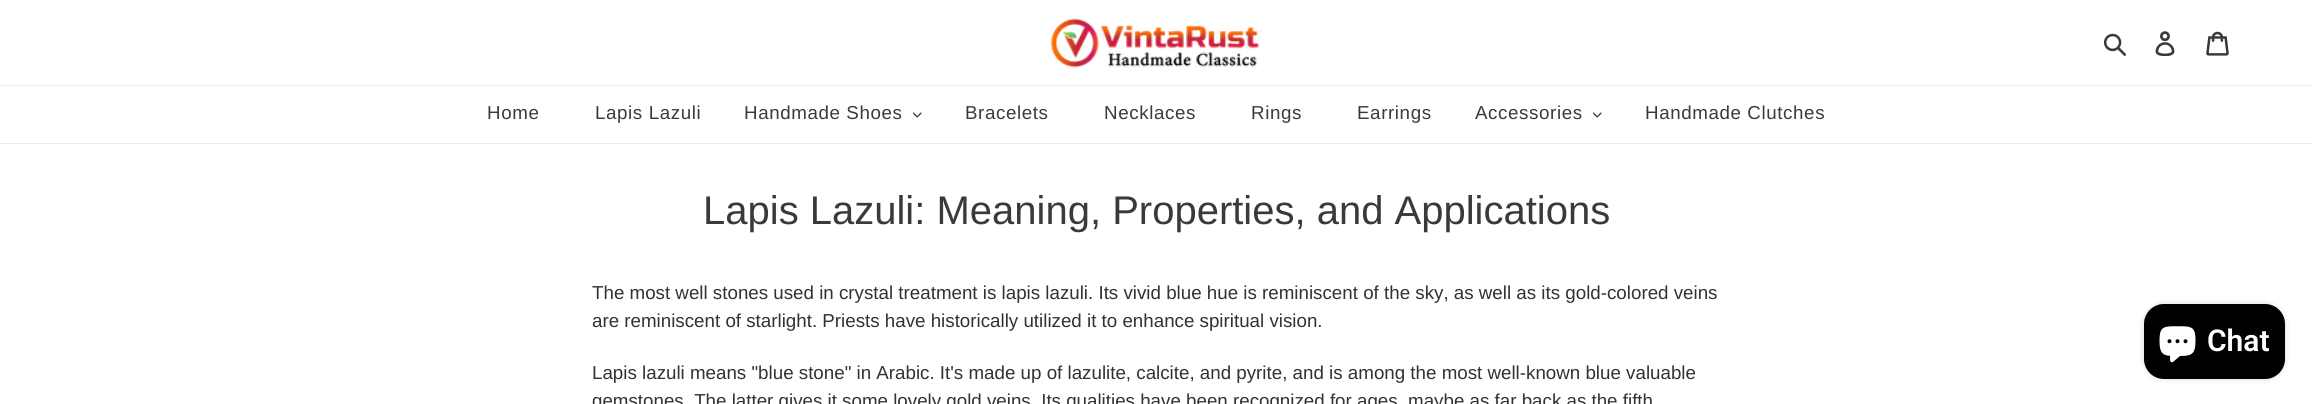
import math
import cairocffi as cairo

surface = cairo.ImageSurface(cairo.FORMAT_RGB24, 2312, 404)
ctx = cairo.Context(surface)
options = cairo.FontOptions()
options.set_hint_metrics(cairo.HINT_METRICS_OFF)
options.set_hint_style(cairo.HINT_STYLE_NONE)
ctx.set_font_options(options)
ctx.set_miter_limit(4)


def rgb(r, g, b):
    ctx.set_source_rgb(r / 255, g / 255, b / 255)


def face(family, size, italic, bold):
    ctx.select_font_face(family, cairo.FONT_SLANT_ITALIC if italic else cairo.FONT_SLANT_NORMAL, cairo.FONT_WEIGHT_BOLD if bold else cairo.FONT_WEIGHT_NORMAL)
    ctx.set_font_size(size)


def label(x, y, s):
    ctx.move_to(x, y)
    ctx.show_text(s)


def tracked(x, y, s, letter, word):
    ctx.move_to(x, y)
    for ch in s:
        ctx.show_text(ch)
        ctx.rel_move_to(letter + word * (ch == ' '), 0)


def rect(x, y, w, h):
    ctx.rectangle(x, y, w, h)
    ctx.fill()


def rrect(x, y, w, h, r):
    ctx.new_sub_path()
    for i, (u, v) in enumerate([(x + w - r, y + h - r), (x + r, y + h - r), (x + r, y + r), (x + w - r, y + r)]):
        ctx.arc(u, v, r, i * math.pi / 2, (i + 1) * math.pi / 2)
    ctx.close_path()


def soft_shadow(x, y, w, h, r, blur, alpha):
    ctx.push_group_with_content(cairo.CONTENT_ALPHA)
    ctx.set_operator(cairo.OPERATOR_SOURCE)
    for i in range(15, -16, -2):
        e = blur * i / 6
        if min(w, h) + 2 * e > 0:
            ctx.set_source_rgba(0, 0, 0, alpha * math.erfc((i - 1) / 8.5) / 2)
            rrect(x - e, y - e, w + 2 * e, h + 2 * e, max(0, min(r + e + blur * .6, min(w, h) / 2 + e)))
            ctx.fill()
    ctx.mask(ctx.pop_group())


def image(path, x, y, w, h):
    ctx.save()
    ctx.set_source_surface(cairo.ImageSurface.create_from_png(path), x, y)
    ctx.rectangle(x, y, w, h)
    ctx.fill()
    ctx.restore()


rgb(255, 255, 255)
ctx.paint()
image('image0.png', 1051, 18, 211, 50)
image('image1.png', 2103, 33, 23, 23)
image('image2.png', 2155, 31, 20, 25)
image('image3.png', 2206, 31, 23, 25)
rgb(235, 235, 235)
rect(0, 85, 2312, 1)
rect(0, 143, 2312, 1)
face('Liberation Sans', 18.75, 0, 0)
rgb(58, 58, 58)
tracked(487, 119, 'Home', 0.6, 0)
tracked(595, 119, 'Lapis Lazuli', 0.6, 0)
tracked(744, 119, 'Handmade Shoes', 0.6, 0)
image('image4.png', 913, 112, 9, 6)
tracked(965, 119, 'Bracelets', 0.6, 0)
tracked(1104, 119, 'Necklaces', 0.6, 0)
tracked(1251, 119, 'Rings', 0.6, 0)
tracked(1357, 119, 'Earrings', 0.6, 0)
tracked(1475, 119, 'Accessories', 0.6, 0)
image('image4.png', 1593, 112, 9, 6)
tracked(1645, 119, 'Handmade Clutches', 0.6, 0)
face('Liberation Sans', 40, 0, 0)
label(703, 224, 'Lapis Lazuli: Meaning, Properties, and Applications')
face('Liberation Sans', 18.75, 0, 0)
rgb(51, 50, 50)
label(592, 299, 'The most well stones used in crystal treatment is lapis lazuli. Its vivid blue hue is reminiscent of the sky, as well as its gold-colored veins')
label(592, 327, 'are reminiscent of starlight. Priests have historically utilized it to enhance spiritual vision.')
label(592, 379, 'Lapis lazuli means "blue stone" in Arabic. It\'s made up of lazulite, calcite, and pyrite, and is among the most well-known blue valuable')
label(592, 407, 'gemstones. The latter gives it some lovely gold veins. Its qualities have been recognized for ages, maybe as far back as the fifth')
rgb(0, 0, 0)
soft_shadow(2144, 304, 141, 75, 20, 3, 0.15)
rgb(0, 0, 0)
rrect(2144, 304, 141, 75, 20)
ctx.fill()
image('image5.png', 2159, 326, 37, 37)
face('Roboto SemiBold', 30, 0, 0)
rgb(255, 255, 255)
label(2207, 351, 'Chat')
surface.write_to_png('render.png')
